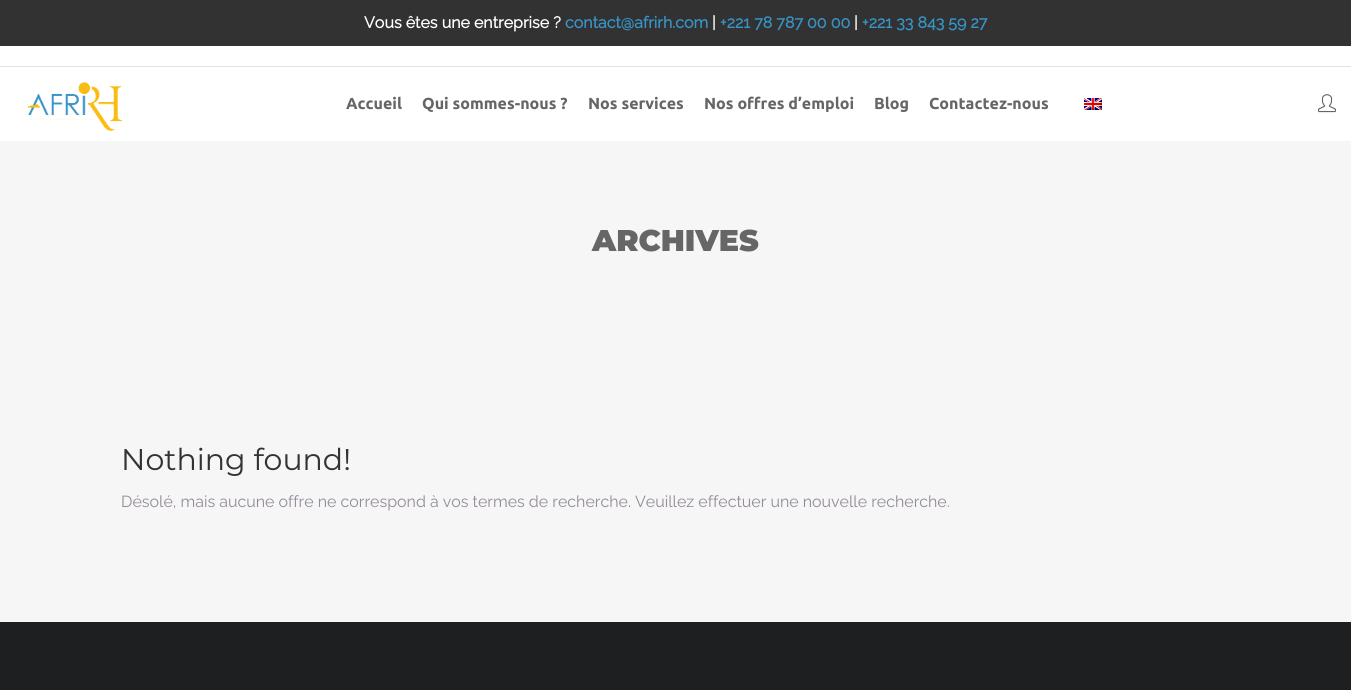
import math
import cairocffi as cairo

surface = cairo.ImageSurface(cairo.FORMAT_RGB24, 1351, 690)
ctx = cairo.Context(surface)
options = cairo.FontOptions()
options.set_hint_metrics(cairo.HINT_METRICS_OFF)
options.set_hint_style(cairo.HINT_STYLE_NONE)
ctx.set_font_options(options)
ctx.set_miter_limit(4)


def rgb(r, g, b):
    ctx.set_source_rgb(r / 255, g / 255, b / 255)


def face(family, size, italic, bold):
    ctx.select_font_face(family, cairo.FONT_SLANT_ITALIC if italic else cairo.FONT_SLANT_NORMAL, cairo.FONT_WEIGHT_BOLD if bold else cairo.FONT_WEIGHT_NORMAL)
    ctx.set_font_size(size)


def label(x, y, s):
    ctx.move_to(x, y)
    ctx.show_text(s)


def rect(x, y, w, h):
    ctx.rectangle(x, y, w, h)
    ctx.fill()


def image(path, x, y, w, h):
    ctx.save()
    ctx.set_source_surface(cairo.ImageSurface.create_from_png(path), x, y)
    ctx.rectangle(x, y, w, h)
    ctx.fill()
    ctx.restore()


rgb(246, 246, 246)
ctx.paint()
rgb(50, 50, 50)
rect(0, 0, 1351, 46)
face('Raleway', 16, 0, 1)
rgb(255, 255, 255)
label(364, 28, 'Vous êtes une entreprise ?')
rgb(55, 148, 199)
label(565, 28, 'contact@afrirh.com')
rgb(255, 255, 255)
label(712, 28, '|')
rgb(55, 148, 199)
label(720, 28, '+221 78 787 00 00')
rgb(255, 255, 255)
label(854, 28, '|')
rgb(55, 148, 199)
label(862, 28, '+221 33 843 59 27')
rgb(255, 255, 255)
rect(0, 46, 1351, 20)
rgb(227, 227, 227)
rect(0, 66, 1351, 1)
rgb(255, 255, 255)
rect(0, 67, 1351, 74)
image('image0.png', 27, 82, 96, 49)
face('Ubuntu', 16, 0, 1)
rgb(102, 102, 102)
label(346, 109, 'Accueil')
label(422, 109, 'Qui sommes-nous ?')
label(588, 109, 'Nos services')
label(704, 109, 'Nos offres d’emploi')
label(874, 109, 'Blog')
label(929, 109, 'Contactez-nous')
image('image1.png', 1084, 98, 18, 12)
image('image2.png', 1318, 94, 18, 19)
face('Montserrat Black', 30, 0, 0)
label(592, 251, 'ARCHIVES')
face('Montserrat', 30, 0, 0)
rgb(51, 51, 51)
label(121, 470, 'Nothing found!')
face('Raleway Thin', 16, 0, 0)
rgb(148, 138, 153)
label(121, 507, 'Désolé, mais aucune offre ne correspond à vos termes de recherche. Veuillez effectuer une nouvelle recherche.')
rgb(30, 31, 33)
rect(0, 622, 1351, 68)
surface.write_to_png('render.png')
